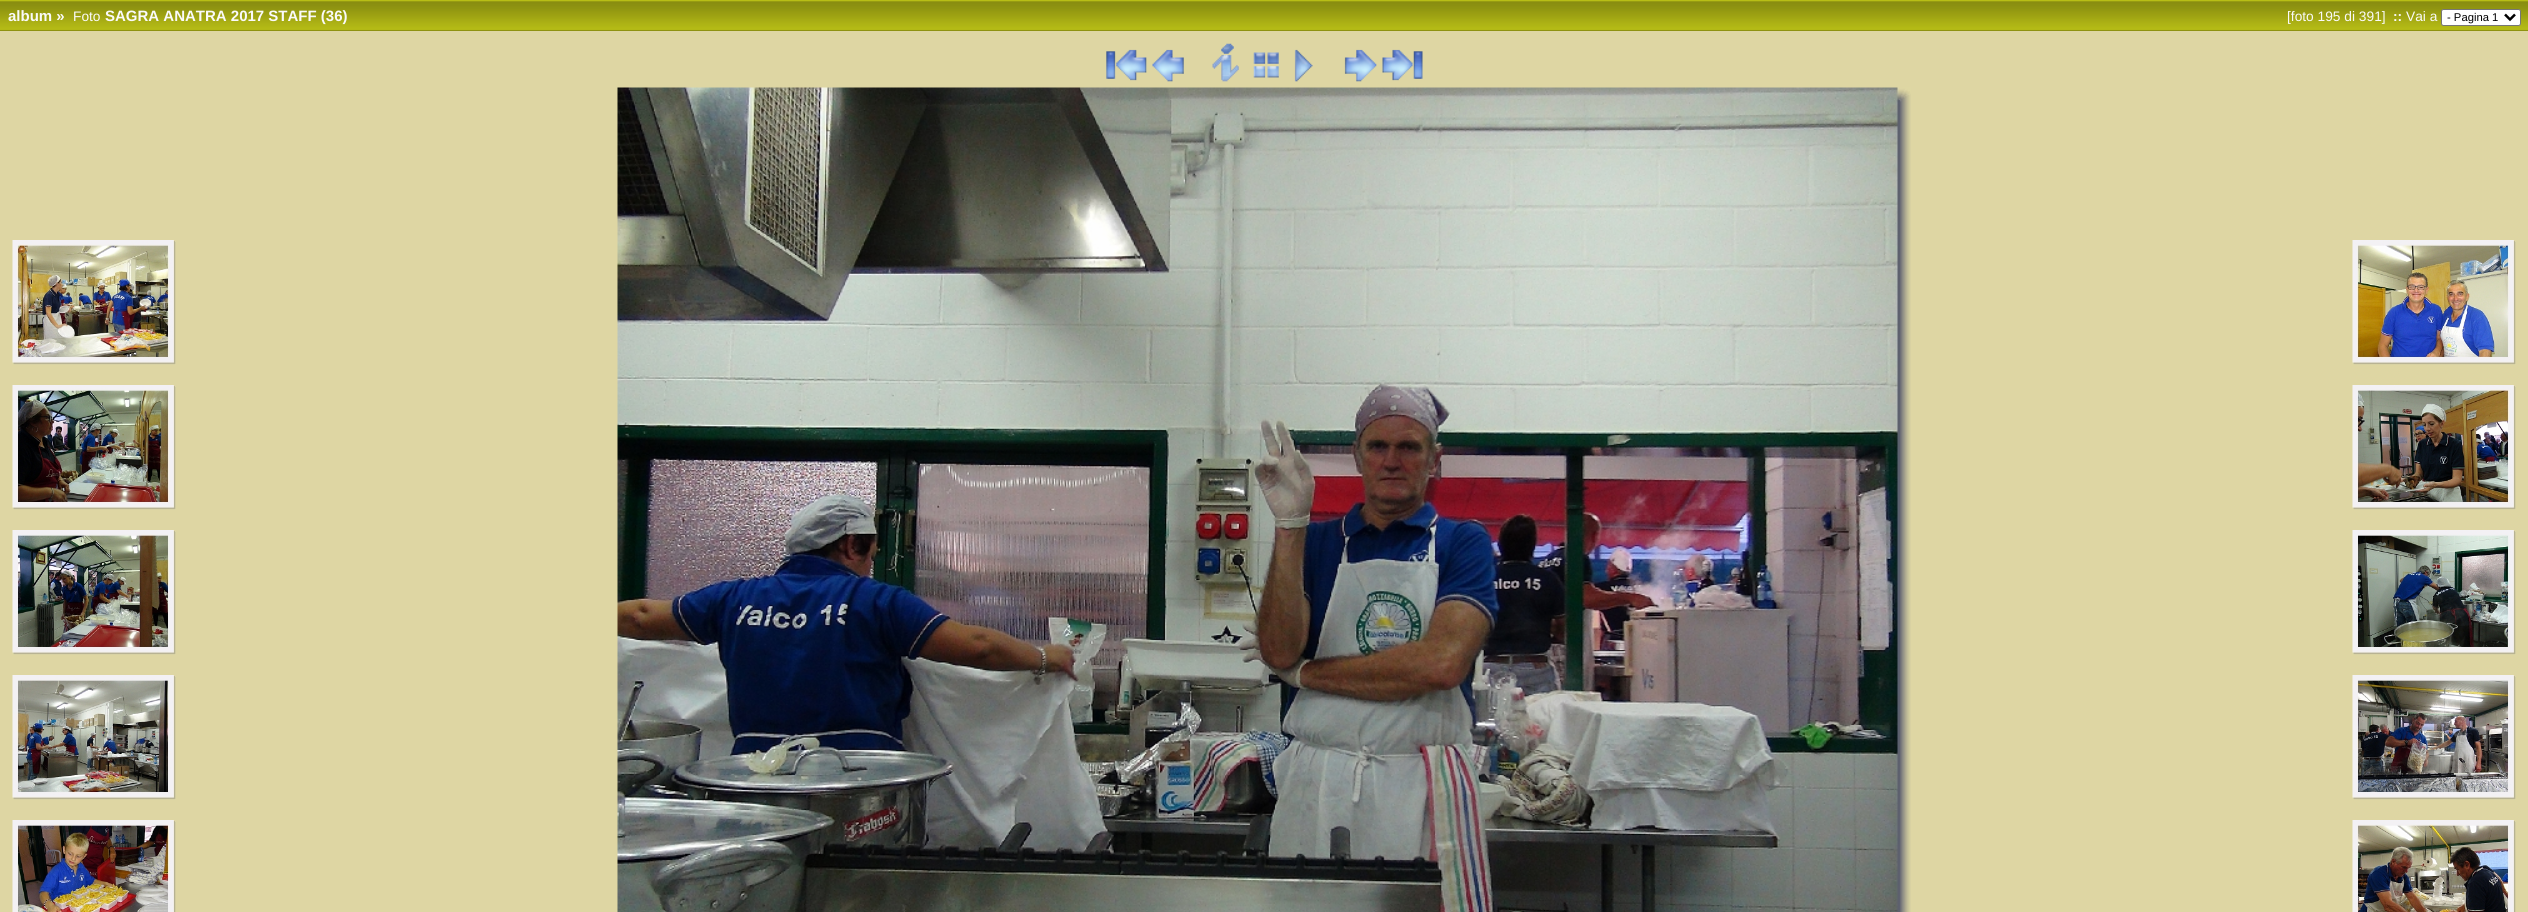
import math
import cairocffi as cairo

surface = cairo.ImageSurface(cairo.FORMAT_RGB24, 2528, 912)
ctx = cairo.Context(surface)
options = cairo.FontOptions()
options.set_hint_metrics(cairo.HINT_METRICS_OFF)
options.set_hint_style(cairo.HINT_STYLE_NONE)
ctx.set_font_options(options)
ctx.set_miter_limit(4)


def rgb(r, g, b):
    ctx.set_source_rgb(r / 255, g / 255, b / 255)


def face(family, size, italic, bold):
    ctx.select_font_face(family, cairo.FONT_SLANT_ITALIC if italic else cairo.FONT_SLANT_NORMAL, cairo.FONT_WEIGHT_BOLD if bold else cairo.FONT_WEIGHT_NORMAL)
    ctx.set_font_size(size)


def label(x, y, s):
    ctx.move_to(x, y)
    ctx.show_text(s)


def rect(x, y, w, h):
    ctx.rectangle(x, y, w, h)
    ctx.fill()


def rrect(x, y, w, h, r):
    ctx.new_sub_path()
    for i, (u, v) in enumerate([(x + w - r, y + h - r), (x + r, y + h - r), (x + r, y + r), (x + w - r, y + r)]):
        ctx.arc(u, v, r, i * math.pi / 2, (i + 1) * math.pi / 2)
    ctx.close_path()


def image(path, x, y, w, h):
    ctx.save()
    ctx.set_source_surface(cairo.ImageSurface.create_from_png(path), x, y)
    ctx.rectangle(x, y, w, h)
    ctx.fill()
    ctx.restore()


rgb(255, 255, 255)
ctx.paint()
image('image0.png', 0, 0, 2528, 31)
face('Liberation Sans', 15, 0, 1)
rgb(250, 250, 250)
label(8, 21, 'album »')
face('Liberation Sans', 13.75, 0, 0)
label(73, 21, 'Foto')
face('Liberation Sans', 15, 0, 1)
label(105, 21, 'SAGRA ANATRA 2017 STAFF (36)')
face('Liberation Sans', 13.75, 0, 0)
label(2287, 21, '[foto 195 di 391]')
face('Liberation Sans', 13.75, 0, 1)
label(2393, 21, '::')
face('Liberation Sans', 13.75, 0, 0)
label(2406, 21, 'Vai a')
rgb(255, 255, 255)
rrect(2441.5, 9.5, 79, 16, 2)
ctx.fill_preserve()
rgb(118, 118, 118)
ctx.set_line_width(1)
ctx.stroke()
ctx.new_path()
ctx.move_to(2505, 14.5)
ctx.line_to(2510, 19.5)
ctx.line_to(2515, 14.5)
rgb(0, 0, 0)
ctx.set_line_width(2.5)
ctx.stroke()
face('Liberation Sans', 11.25, 0, 0)
label(2447, 21, '- Pagina 1')
rgb(222, 214, 163)
rect(0, 31, 2528, 881)
image('image1.png', 1106, 49, 41, 32)
image('image2.png', 1152, 49, 32, 33)
image('image3.png', 1212, 43, 27, 39)
image('image4.png', 1253, 52, 26, 26)
image('image5.png', 1294, 49, 19, 33)
image('image6.png', 1344, 49, 33, 33)
image('image7.png', 1382, 49, 41, 32)
image('image8.png', 12, 240, 164, 125)
image('image9.png', 12, 385, 164, 125)
image('image10.png', 12, 530, 164, 125)
image('image11.png', 12, 675, 164, 125)
image('image12.png', 12, 820, 164, 92)
image('image13.png', 617, 87, 1294, 825)
image('image14.png', 2352, 240, 164, 125)
image('image15.png', 2352, 385, 164, 125)
image('image16.png', 2352, 530, 164, 125)
image('image17.png', 2352, 675, 164, 125)
image('image18.png', 2352, 820, 164, 92)
surface.write_to_png('render.png')
